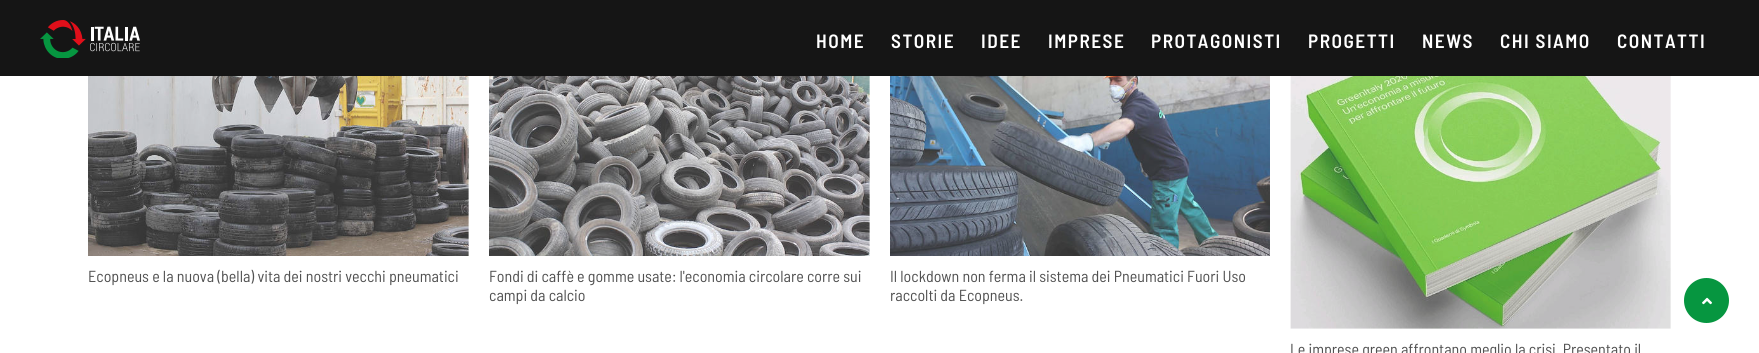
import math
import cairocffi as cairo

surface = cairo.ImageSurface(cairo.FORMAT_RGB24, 1759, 353)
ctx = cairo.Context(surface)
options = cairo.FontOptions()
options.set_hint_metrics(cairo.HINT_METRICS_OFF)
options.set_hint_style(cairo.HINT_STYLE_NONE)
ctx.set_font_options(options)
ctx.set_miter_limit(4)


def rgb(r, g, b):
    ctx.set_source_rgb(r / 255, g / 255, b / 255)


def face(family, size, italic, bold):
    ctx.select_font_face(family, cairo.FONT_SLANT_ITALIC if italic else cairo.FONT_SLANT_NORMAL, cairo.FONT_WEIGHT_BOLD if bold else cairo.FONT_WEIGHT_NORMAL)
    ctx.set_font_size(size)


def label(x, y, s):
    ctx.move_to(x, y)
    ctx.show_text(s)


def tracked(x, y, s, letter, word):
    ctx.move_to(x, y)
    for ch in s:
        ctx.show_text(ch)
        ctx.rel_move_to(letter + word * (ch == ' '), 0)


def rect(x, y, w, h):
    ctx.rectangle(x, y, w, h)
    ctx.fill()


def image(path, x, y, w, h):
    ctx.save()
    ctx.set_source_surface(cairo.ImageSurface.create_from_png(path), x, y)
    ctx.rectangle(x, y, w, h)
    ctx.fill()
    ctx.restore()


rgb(255, 255, 255)
ctx.paint()
rgb(21, 21, 21)
rect(0, 0, 1759, 76)
image('image0.png', 40, 20, 100, 38)
face('Barlow Semi Condensed SemiBold', 19.25, 0, 0)
rgb(255, 255, 255)
tracked(816, 48, 'HOME', 1.5, 0)
tracked(891, 48, 'STORIE', 1.5, 0)
tracked(981, 48, 'IDEE', 1.5, 0)
tracked(1048, 48, 'IMPRESE', 1.5, 0)
tracked(1151, 48, 'PROTAGONISTI', 1.5, 0)
tracked(1308, 48, 'PROGETTI', 1.5, 0)
tracked(1422, 48, 'NEWS', 1.5, 0)
tracked(1500, 48, 'CHI SIAMO', 1.5, 0)
tracked(1617, 48, 'CONTATTI', 1.5, 0)
image('image1.png', 88, 76, 381, 180)
face('Barlow Semi Condensed', 16, 0, 0)
rgb(81, 81, 81)
label(88, 282, 'Ecopneus e la nuova (bella) vita dei nostri vecchi pneumatici')
image('image2.png', 489, 76, 381, 180)
label(489, 282, 'Fondi di caffè e gomme usate: l\'economia circolare corre sui')
label(489, 301, 'campi da calcio')
image('image3.png', 890, 76, 380, 180)
label(890, 282, 'Il lockdown non ferma il sistema dei Pneumatici Fuori Uso')
label(890, 301, 'raccolti da Ecopneus.')
image('image4.png', 1290, 76, 381, 253)
label(1290, 355, 'Le imprese green affrontano meglio la crisi. Presentato il')
rgb(6, 150, 64)
ctx.new_path()
ctx.arc(1706.5, 300.5, 22.5, 0, 2 * math.pi)
ctx.fill()
image('image5.png', 1702, 297, 10, 8)
surface.write_to_png('render.png')
